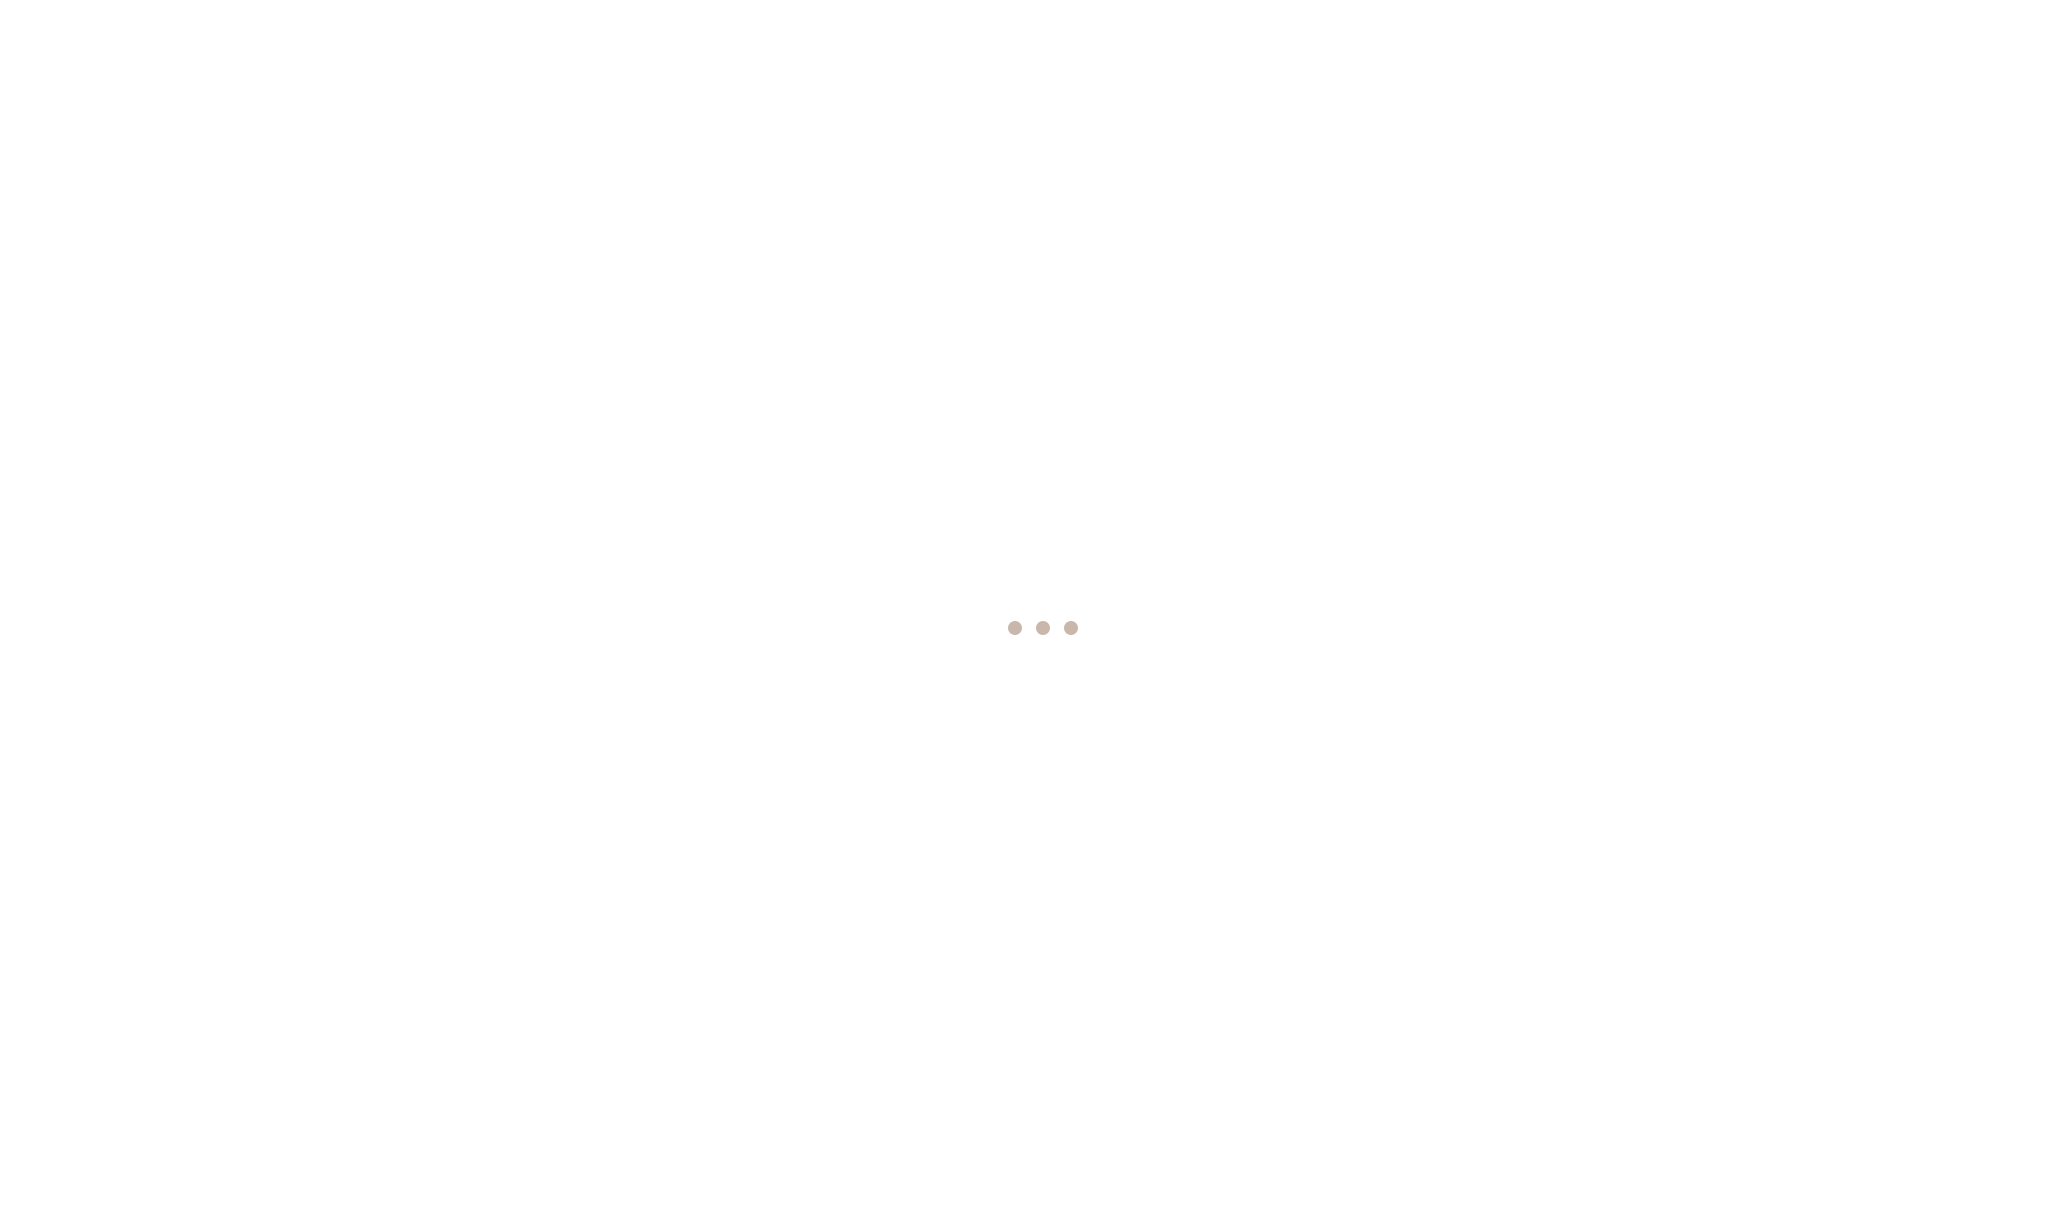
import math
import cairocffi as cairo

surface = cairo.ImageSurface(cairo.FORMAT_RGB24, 2058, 1226)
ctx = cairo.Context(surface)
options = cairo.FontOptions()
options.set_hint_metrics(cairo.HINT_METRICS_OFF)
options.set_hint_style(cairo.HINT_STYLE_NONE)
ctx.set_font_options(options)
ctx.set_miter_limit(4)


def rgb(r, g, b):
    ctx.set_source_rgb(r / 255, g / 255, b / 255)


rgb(255, 255, 255)
ctx.paint()
rgb(201, 183, 171)
ctx.arc(1015, 628, 7, 0, 2 * math.pi)
ctx.fill()
ctx.arc(1043, 628, 7, 0, 2 * math.pi)
ctx.fill()
ctx.arc(1071, 628, 7, 0, 2 * math.pi)
ctx.fill()
surface.write_to_png('render.png')
